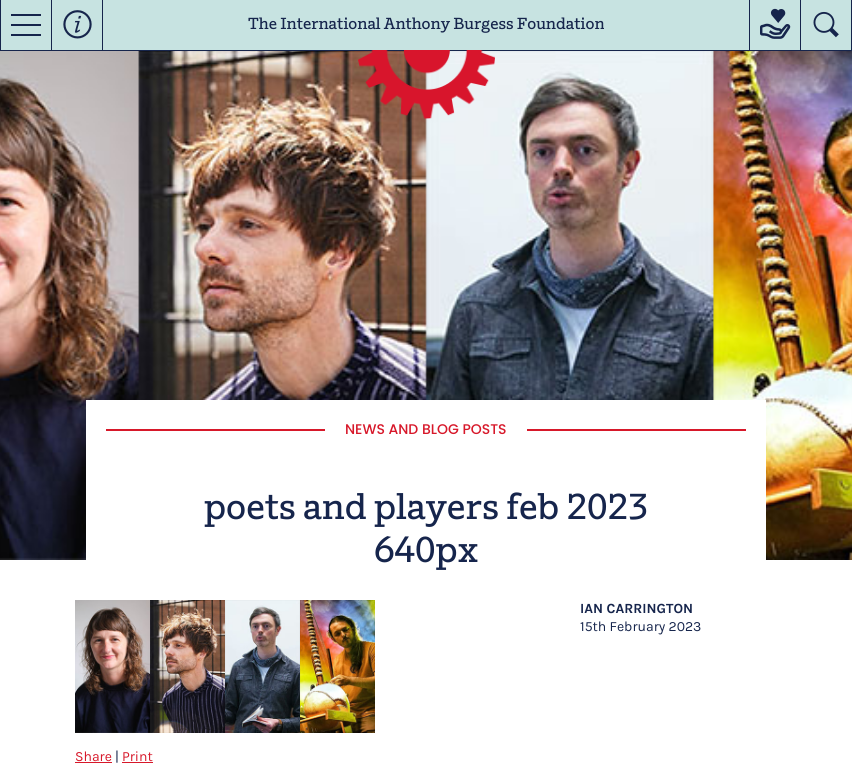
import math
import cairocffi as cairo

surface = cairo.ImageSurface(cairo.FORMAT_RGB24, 852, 774)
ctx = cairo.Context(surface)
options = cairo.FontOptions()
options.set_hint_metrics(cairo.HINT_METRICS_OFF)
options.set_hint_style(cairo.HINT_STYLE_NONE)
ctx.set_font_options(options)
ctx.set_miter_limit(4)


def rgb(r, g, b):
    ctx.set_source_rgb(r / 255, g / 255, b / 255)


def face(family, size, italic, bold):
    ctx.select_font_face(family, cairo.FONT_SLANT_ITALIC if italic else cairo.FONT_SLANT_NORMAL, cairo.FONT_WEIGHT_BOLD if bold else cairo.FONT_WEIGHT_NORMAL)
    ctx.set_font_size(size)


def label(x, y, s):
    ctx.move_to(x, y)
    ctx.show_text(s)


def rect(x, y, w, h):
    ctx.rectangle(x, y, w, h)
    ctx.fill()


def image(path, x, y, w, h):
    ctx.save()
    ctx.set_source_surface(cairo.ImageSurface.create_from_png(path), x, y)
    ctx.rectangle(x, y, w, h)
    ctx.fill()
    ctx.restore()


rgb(255, 255, 255)
ctx.paint()
rgb(199, 227, 225)
rect(1, 0, 850, 50)
rgb(22, 37, 76)
rect(0, 50, 852, 1)
rect(51, 0, 1, 50)
rect(0, 0, 1, 50)
rect(11, 14, 30, 2)
rect(11, 24, 30, 2)
rect(11, 34, 30, 2)
rect(102, 0, 1, 50)
image('image0.png', 63, 10, 29, 29)
rect(749, 0, 1, 50)
face('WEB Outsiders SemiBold', 16, 0, 0)
label(248, 29, 'The International Anthony Burgess Foundation')
rect(800, 0, 1, 50)
image('image1.png', 760, 8, 31, 31)
rect(851, 0, 1, 50)
image('image2.png', 813, 11, 26, 27)
image('image4.png', 0, 51, 852, 509)
image('image3.png', 358, 50, 137, 69)
rgb(255, 255, 255)
rect(86, 400, 680, 160)
rgb(215, 24, 42)
rect(106, 429, 219, 2)
face('Poppins Medium', 14, 0, 0)
label(345, 434, 'NEWS AND BLOG POSTS')
rect(527, 429, 219, 2)
face('WEB Outsiders SemiBold', 36, 0, 0)
rgb(22, 37, 76)
label(204, 519, 'poets and players feb 2023')
label(374, 562, '640px')
face('Karla', 14, 0, 1)
label(580, 613, 'IAN CARRINGTON')
face('Karla', 14, 0, 0)
label(580, 631, '15th February 2023')
image('image5.png', 75, 600, 300, 133)
rgb(215, 24, 42)
label(75, 761, 'Share')
rect(75, 762, 37, 1)
rgb(22, 37, 76)
label(115, 761, '|')
rgb(215, 24, 42)
label(122, 761, 'Print')
rect(122, 762, 31, 1)
surface.write_to_png('render.png')
